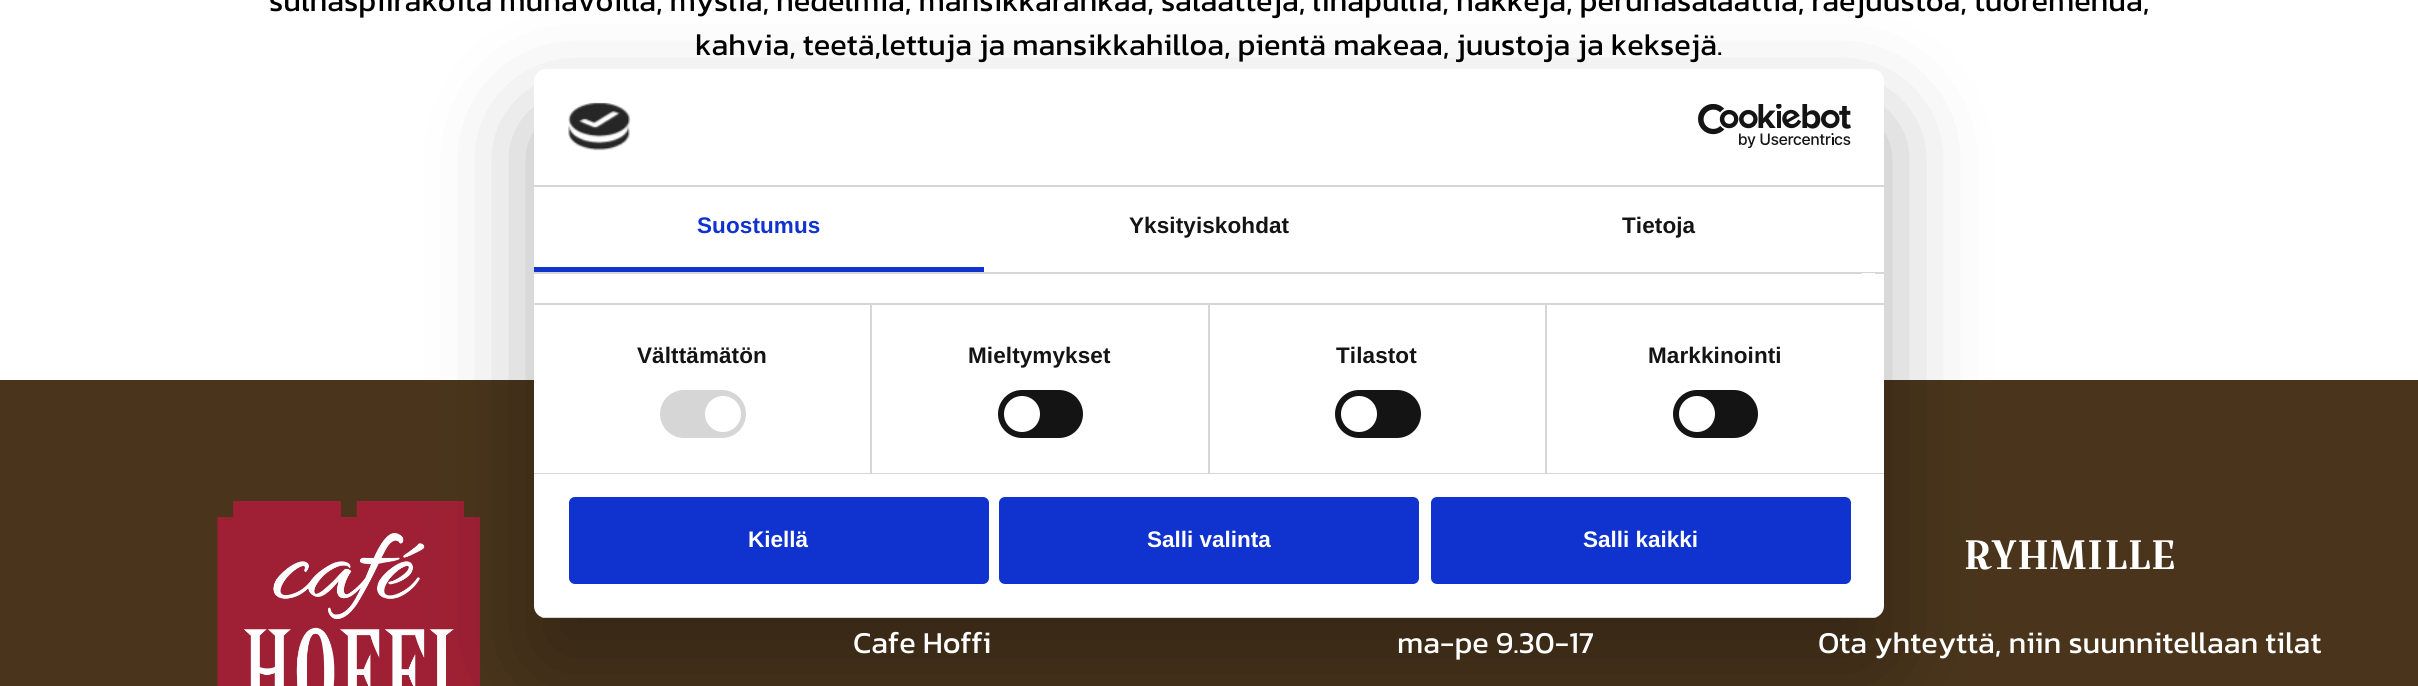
import math
import cairocffi as cairo

surface = cairo.ImageSurface(cairo.FORMAT_RGB24, 2418, 686)
ctx = cairo.Context(surface)
options = cairo.FontOptions()
options.set_hint_metrics(cairo.HINT_METRICS_OFF)
options.set_hint_style(cairo.HINT_STYLE_NONE)
ctx.set_font_options(options)
ctx.set_miter_limit(4)


def rgb(r, g, b):
    ctx.set_source_rgb(r / 255, g / 255, b / 255)


def face(family, size, italic, bold):
    ctx.select_font_face(family, cairo.FONT_SLANT_ITALIC if italic else cairo.FONT_SLANT_NORMAL, cairo.FONT_WEIGHT_BOLD if bold else cairo.FONT_WEIGHT_NORMAL)
    ctx.set_font_size(size)


def label(x, y, s):
    ctx.move_to(x, y)
    ctx.show_text(s)


def tracked(x, y, s, letter, word):
    ctx.move_to(x, y)
    for ch in s:
        ctx.show_text(ch)
        ctx.rel_move_to(letter + word * (ch == ' '), 0)


def rect(x, y, w, h):
    ctx.rectangle(x, y, w, h)
    ctx.fill()


def rrect(x, y, w, h, r):
    ctx.new_sub_path()
    for i, (u, v) in enumerate([(x + w - r, y + h - r), (x + r, y + h - r), (x + r, y + r), (x + w - r, y + r)]):
        ctx.arc(u, v, r, i * math.pi / 2, (i + 1) * math.pi / 2)
    ctx.close_path()


def soft_shadow(x, y, w, h, r, blur, alpha):
    ctx.push_group_with_content(cairo.CONTENT_ALPHA)
    ctx.set_operator(cairo.OPERATOR_SOURCE)
    for i in range(15, -16, -2):
        e = blur * i / 6
        if min(w, h) + 2 * e > 0:
            ctx.set_source_rgba(0, 0, 0, alpha * math.erfc((i - 1) / 8.5) / 2)
            rrect(x - e, y - e, w + 2 * e, h + 2 * e, max(0, min(r + e + blur * .6, min(w, h) / 2 + e)))
            ctx.fill()
    ctx.mask(ctx.pop_group())


def image(path, x, y, w, h):
    ctx.save()
    ctx.set_source_surface(cairo.ImageSurface.create_from_png(path), x, y)
    ctx.rectangle(x, y, w, h)
    ctx.fill()
    ctx.restore()


rgb(255, 255, 255)
ctx.paint()
face('Kanit', 30.67, 0, 0)
rgb(0, 0, 0)
label(269, 11, 'sulhaspiirakoita munavoilla, mysliä, hedelmiä, mansikkarahkaa, salaatteja, lihapullia, nakkeja, perunasalaattia, raejuustoa, tuoremehua,')
label(695, 55, 'kahvia, teetä,lettuja ja mansikkahilloa, pientä makeaa, juustoja ja keksejä.')
rgb(74, 53, 28)
rect(0, 380, 2418, 306)
image('image2.png', 217, 501, 263, 185)
rgb(0, 0, 0)
soft_shadow(534, 117, 1350, 549, 12, 51, 0.3)
rgb(255, 255, 255)
rrect(534, 69, 1350, 549, 12)
ctx.fill()
rgb(214, 214, 214)
rect(534, 185, 1350, 2)
image('image0.png', 568, 102, 63, 49)
image('image1.png', 1698, 104, 153, 45)
rect(534, 272, 1350, 2)
rgb(16, 50, 207)
rect(534, 267, 450, 5)
face('Liberation Sans', 22.5, 0, 1)
tracked(697, 233, 'Suostumus', 0.1, 0)
rgb(20, 20, 20)
tracked(1129, 233, 'Yksityiskohdat', 0.1, 0)
tracked(1622, 233, 'Tietoja', 0.1, 0)
rgb(214, 214, 214)
rect(534, 303, 1350, 2)
rgb(255, 255, 255)
rect(1862, 273, 13, 1)
rgb(214, 214, 214)
rect(534, 473, 1350, 1)
rgb(229, 229, 229)
rect(534, 303, 1, 2)
rgb(214, 214, 214)
rect(870, 305, 2, 168)
rgb(20, 20, 20)
tracked(637, 363, 'Välttämätön', 0.1, 0)
rgb(214, 214, 214)
rrect(660, 390, 86, 48, 24)
ctx.fill()
rgb(255, 255, 255)
ctx.arc(723, 414, 18, 0, 2 * math.pi)
ctx.fill()
rgb(214, 214, 214)
rect(1208, 305, 2, 168)
rgb(20, 20, 20)
tracked(968, 363, 'Mieltymykset', 0.1, 0)
rrect(998, 390, 85, 48, 24)
ctx.fill()
rgb(255, 255, 255)
ctx.arc(1022, 414, 18, 0, 2 * math.pi)
ctx.fill()
rgb(214, 214, 214)
rect(1545, 305, 2, 168)
rgb(20, 20, 20)
tracked(1336, 363, 'Tilastot', 0.1, 0)
rrect(1335, 390, 86, 48, 24)
ctx.fill()
rgb(255, 255, 255)
ctx.arc(1359, 414, 18, 0, 2 * math.pi)
ctx.fill()
rgb(20, 20, 20)
tracked(1648, 363, 'Markkinointi', 0.1, 0)
rrect(1673, 390, 85, 48, 24)
ctx.fill()
rgb(255, 255, 255)
ctx.arc(1697, 414, 18, 0, 2 * math.pi)
ctx.fill()
ctx.save()
rrect(534, 69, 1350, 549, 12)
ctx.clip()
rgb(214, 214, 214)
rect(534, 617, 1350, 1)
ctx.restore()
rgb(16, 50, 207)
rrect(570.5, 498.5, 417, 84, 4.5)
ctx.fill_preserve()
ctx.set_line_width(3)
ctx.stroke()
rgb(255, 255, 255)
label(748, 547, 'Kiellä')
rgb(16, 50, 207)
rrect(1000.5, 498.5, 417, 84, 4.5)
ctx.fill_preserve()
ctx.stroke()
rgb(255, 255, 255)
label(1147, 547, 'Salli valinta')
rgb(16, 50, 207)
rrect(1432.5, 498.5, 417, 84, 4.5)
ctx.fill_preserve()
ctx.stroke()
rgb(255, 255, 255)
label(1583, 547, 'Salli kaikki')
face('Kanit', 30.67, 0, 0)
label(853, 653, 'Cafe Hoffi')
label(1397, 653, 'ma-pe 9.30-17')
face('Croissant One', 41, 0, 0)
label(1963, 569, 'RYHMILLE')
face('Kanit', 30.67, 0, 0)
label(1818, 653, 'Ota yhteyttä, niin suunnitellaan tilat')
surface.write_to_png('render.png')
